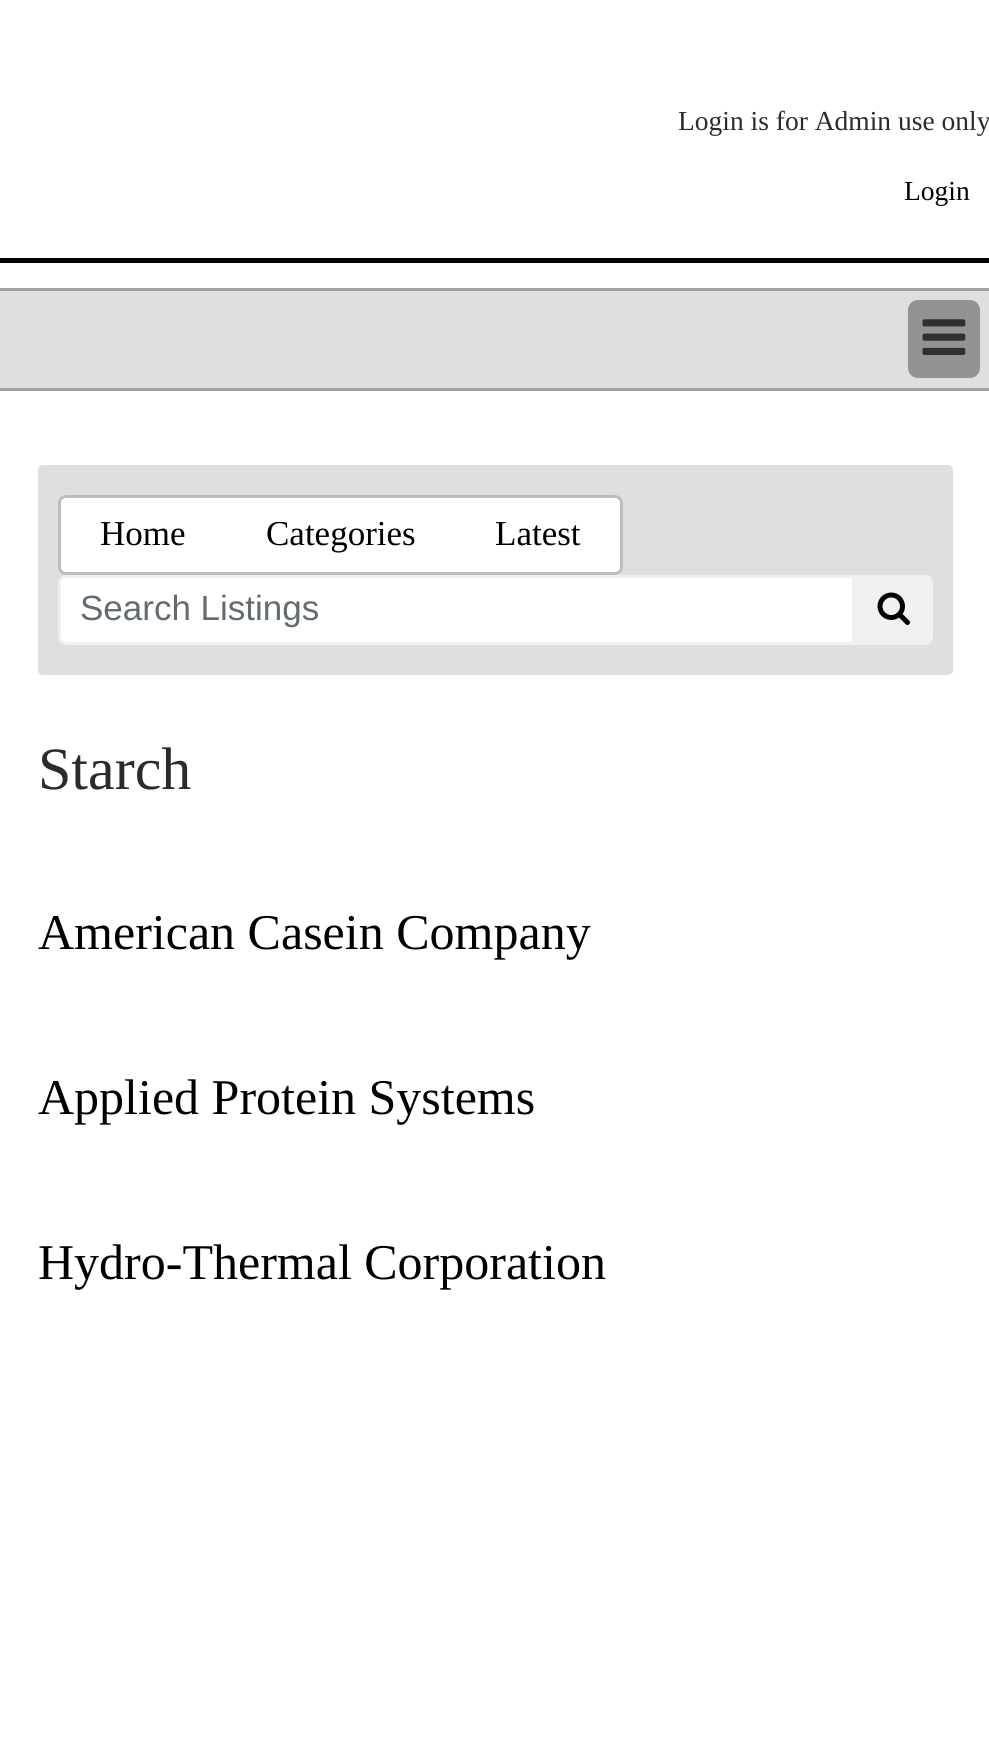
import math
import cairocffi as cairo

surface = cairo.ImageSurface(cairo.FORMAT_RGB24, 989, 1745)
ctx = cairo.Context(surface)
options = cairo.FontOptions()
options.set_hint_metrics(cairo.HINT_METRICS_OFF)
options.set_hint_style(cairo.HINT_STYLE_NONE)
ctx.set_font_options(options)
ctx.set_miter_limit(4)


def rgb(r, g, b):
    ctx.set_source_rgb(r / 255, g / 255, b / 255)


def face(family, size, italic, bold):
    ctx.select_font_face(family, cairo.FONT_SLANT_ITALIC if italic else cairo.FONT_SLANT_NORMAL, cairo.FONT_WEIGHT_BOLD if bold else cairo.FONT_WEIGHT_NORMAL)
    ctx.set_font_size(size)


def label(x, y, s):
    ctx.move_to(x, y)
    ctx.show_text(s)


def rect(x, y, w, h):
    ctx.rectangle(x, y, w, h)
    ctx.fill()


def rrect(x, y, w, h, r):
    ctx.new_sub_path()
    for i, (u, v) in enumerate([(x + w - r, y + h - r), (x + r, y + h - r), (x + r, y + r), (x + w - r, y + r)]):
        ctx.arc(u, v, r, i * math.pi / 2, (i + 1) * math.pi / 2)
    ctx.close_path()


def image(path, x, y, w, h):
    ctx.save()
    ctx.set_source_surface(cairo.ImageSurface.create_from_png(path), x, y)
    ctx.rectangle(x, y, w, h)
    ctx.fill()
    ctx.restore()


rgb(255, 255, 255)
ctx.paint()
face('Liberation Serif', 27.5, 0, 0)
rgb(41, 43, 44)
label(678, 130, 'Login is for Admin use only')
rgb(0, 0, 0)
label(904, 200, 'Login')
rect(0, 258, 989, 5)
rgb(223, 223, 223)
rect(0, 291, 989, 97)
rgb(160, 160, 160)
rect(0, 288, 989, 3)
rect(0, 388, 989, 3)
rgb(147, 147, 147)
rrect(908, 300, 72, 78, 10)
ctx.fill()
image('image0.png', 922, 319, 44, 36)
rgb(223, 223, 223)
rrect(38, 465, 915, 210, 5)
ctx.fill()
rgb(255, 255, 255)
rrect(58, 495, 565, 80, 8)
ctx.fill()
rrect(59.5, 496.5, 562, 77, 6.5)
ctx.set_source_rgba(0.49, 0.49, 0.49, 0.5)
ctx.set_line_width(3)
ctx.stroke()
face('Liberation Serif', 35, 0, 0)
rgb(0, 0, 0)
label(100, 545, 'Home')
label(266, 545, 'Categories')
label(495, 545, 'Latest')
rgb(255, 255, 255)
ctx.new_path()
ctx.move_to(66, 576.5)
ctx.line_to(853.5, 576.5)
ctx.line_to(853.5, 643.5)
ctx.line_to(66, 643.5)
ctx.curve_to(62.5, 643.5, 59.5, 640.5, 59.5, 637)
ctx.line_to(59.5, 583)
ctx.curve_to(59.5, 579.5, 62.5, 576.5, 66, 576.5)
ctx.close_path()
ctx.fill_preserve()
rgb(240, 240, 240)
ctx.stroke()
face('Liberation Sans', 35, 0, 0)
rgb(99, 108, 114)
label(80, 620, 'Search Listings')
rgb(240, 240, 240)
ctx.new_path()
ctx.move_to(855, 575)
ctx.line_to(925, 575)
ctx.curve_to(929.5, 575, 933, 578.5, 933, 583)
ctx.line_to(933, 637)
ctx.curve_to(933, 641.5, 929.5, 645, 925, 645)
ctx.line_to(855, 645)
ctx.close_path()
ctx.fill()
image('image1.png', 877, 592, 33, 33)
face('Liberation Serif', 60, 0, 0)
rgb(41, 43, 44)
label(38, 789, 'Starch')
face('Liberation Serif', 50, 0, 0)
rgb(0, 0, 0)
label(38, 949, 'American Casein Company')
label(38, 1114, 'Applied Protein Systems')
label(38, 1279, 'Hydro-Thermal Corporation')
surface.write_to_png('render.png')
